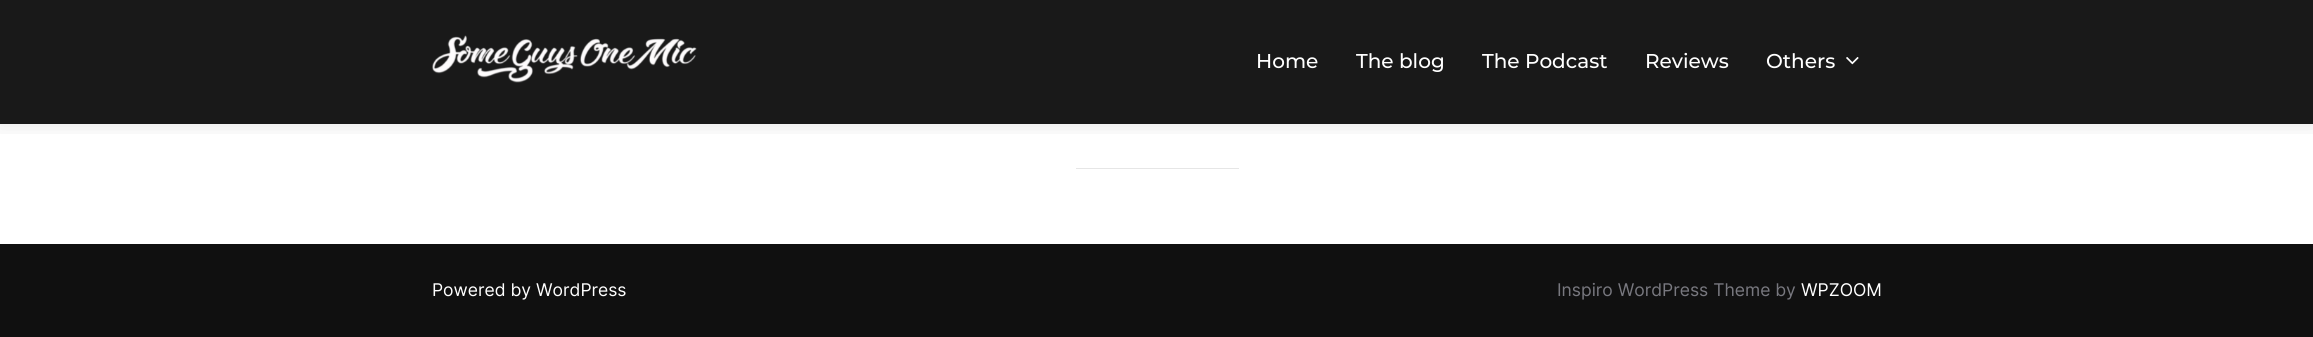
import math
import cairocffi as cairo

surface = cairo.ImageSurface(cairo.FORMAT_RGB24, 2313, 337)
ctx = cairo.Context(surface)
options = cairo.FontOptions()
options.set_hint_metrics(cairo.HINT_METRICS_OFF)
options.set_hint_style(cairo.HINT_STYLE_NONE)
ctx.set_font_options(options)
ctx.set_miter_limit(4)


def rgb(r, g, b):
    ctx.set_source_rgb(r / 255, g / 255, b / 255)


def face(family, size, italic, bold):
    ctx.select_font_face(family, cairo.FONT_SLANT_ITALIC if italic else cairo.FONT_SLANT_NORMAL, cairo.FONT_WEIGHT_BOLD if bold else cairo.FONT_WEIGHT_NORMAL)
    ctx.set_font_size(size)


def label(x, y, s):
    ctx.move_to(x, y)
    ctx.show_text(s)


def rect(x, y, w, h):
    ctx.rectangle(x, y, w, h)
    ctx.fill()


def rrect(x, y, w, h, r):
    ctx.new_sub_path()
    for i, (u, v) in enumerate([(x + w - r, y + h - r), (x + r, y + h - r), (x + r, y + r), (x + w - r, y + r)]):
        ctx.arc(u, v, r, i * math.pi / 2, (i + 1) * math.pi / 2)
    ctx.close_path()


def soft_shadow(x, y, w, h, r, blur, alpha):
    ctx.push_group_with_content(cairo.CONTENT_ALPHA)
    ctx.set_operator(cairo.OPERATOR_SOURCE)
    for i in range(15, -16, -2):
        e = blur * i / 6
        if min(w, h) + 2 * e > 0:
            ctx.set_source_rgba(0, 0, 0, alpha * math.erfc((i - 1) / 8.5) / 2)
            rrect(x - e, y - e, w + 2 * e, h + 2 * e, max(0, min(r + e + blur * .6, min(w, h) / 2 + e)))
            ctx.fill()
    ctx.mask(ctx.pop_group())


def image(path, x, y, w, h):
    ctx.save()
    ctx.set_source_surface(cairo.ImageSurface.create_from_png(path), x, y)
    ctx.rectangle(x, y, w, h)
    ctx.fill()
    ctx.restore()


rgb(255, 255, 255)
ctx.paint()
ctx.save()
ctx.rectangle(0, 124, 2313, 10)
ctx.clip()
rgb(0, 0, 0)
soft_shadow(-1, -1, 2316, 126, 0, 11, 0.1)
ctx.restore()
ctx.set_source_rgba(0, 0, 0, 0.9)
rect(0, 0, 2313, 124)
image('image0.png', 432, 35, 265, 48)
face('Montserrat Medium', 20, 0, 0)
rgb(255, 255, 255)
label(1256, 68, 'Home')
label(1356, 68, 'The blog')
label(1482, 68, 'The Podcast')
label(1645, 68, 'Reviews')
label(1766, 68, 'Others')
image('image1.png', 1846, 57, 13, 8)
rgb(230, 230, 230)
rect(1076, 168, 163, 1)
rgb(16, 16, 16)
rect(0, 244, 2313, 93)
face('Inter', 17.5, 0, 0)
rgb(255, 255, 255)
label(432, 296, 'Powered by WordPress')
rgb(120, 120, 127)
label(1557, 296, 'Inspiro WordPress Theme by')
rgb(255, 255, 255)
label(1801, 296, 'WPZOOM')
surface.write_to_png('render.png')
